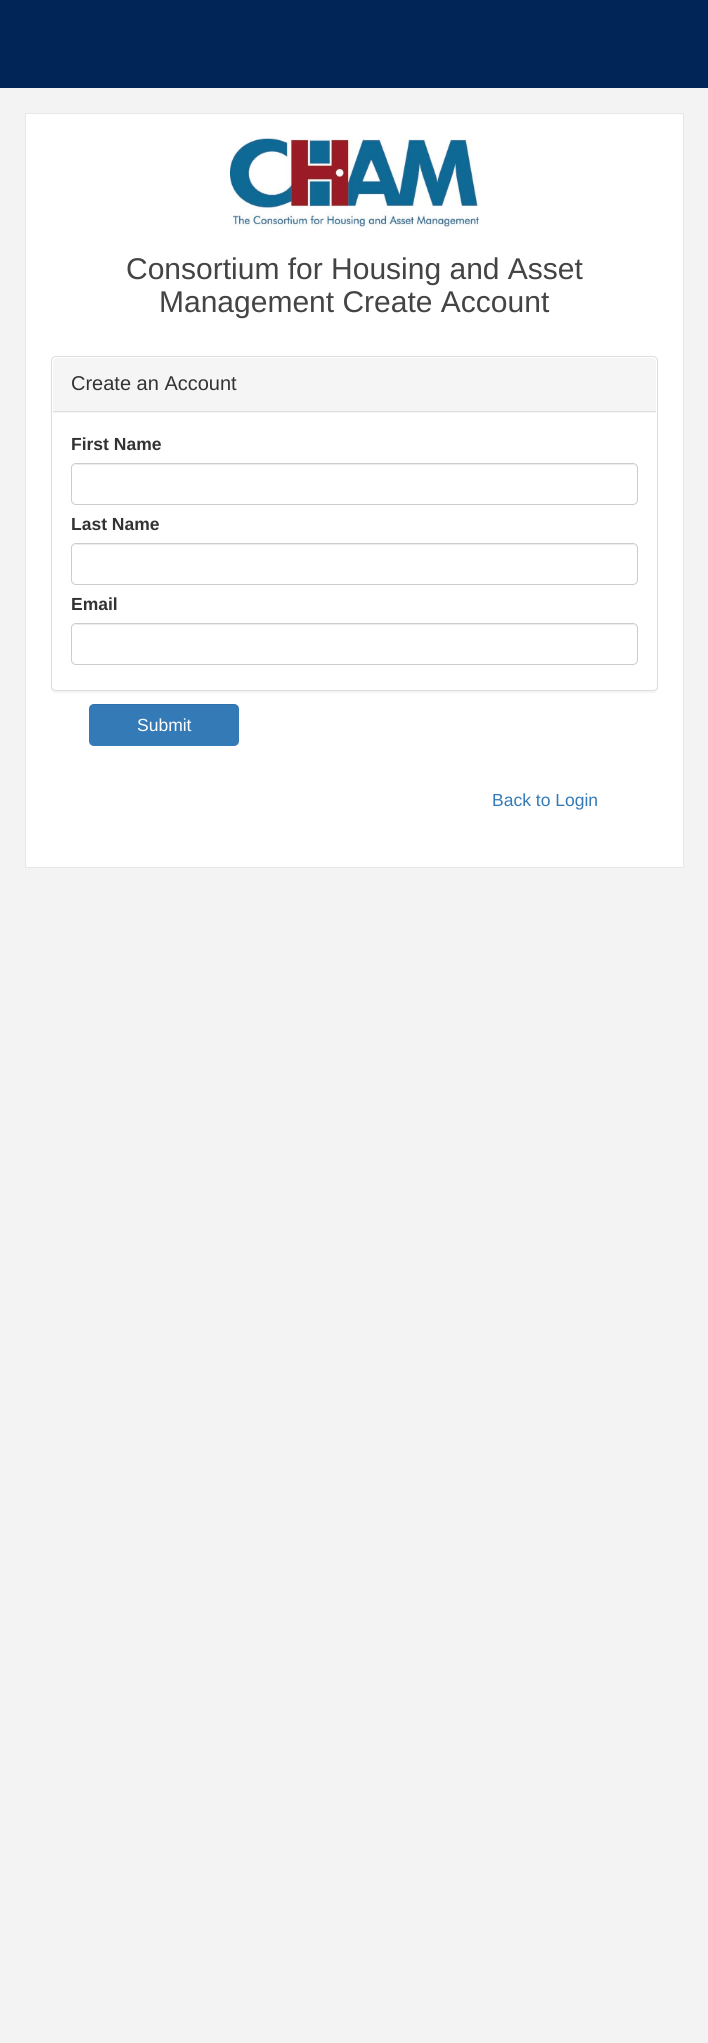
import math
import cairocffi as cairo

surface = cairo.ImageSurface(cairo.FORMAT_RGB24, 708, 2043)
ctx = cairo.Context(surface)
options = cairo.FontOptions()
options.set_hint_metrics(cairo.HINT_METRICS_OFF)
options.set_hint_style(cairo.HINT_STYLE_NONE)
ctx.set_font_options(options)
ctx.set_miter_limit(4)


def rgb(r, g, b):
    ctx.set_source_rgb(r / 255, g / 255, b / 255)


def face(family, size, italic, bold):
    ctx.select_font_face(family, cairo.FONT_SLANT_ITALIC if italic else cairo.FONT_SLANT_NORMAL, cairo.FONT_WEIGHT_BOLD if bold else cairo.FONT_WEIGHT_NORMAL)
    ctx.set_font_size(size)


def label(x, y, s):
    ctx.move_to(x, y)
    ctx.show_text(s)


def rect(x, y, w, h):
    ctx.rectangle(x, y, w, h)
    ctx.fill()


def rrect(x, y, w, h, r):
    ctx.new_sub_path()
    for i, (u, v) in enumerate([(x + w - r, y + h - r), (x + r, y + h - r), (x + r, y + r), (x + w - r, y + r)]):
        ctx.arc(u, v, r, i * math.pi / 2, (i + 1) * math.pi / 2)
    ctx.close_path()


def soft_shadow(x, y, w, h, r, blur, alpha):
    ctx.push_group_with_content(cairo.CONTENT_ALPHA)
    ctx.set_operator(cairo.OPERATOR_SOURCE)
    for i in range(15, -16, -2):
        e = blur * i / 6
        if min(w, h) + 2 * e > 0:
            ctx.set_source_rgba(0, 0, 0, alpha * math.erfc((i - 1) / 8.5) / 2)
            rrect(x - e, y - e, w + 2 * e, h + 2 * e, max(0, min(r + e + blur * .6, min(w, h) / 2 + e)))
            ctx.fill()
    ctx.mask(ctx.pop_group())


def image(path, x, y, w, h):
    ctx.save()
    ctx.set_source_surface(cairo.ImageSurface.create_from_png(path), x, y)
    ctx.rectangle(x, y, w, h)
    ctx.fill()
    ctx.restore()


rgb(243, 243, 243)
ctx.paint()
rgb(2, 37, 88)
rect(0, 0, 708, 88)
rgb(255, 255, 255)
ctx.rectangle(25.5, 113.5, 658, 754)
ctx.fill_preserve()
rgb(231, 231, 231)
ctx.set_line_width(1)
ctx.stroke()
image('image0.png', 230, 138, 249, 89)
face('Liberation Sans', 30, 0, 0)
rgb(68, 68, 68)
label(126, 279, 'Consortium for Housing and Asset')
label(159, 312, 'Management Create Account')
rgb(0, 0, 0)
soft_shadow(51, 358, 607, 335, 5, 0.5, 0.05)
rgb(255, 255, 255)
rrect(51.5, 356.5, 606, 334, 4.5)
ctx.fill_preserve()
rgb(221, 221, 221)
ctx.stroke()
rgb(245, 245, 245)
ctx.new_path()
ctx.move_to(57, 358)
ctx.line_to(652, 358)
ctx.curve_to(654, 358, 656, 360, 656, 362)
ctx.line_to(656, 413)
ctx.line_to(53, 413)
ctx.line_to(53, 362)
ctx.curve_to(53, 360, 55, 358, 57, 358)
ctx.close_path()
ctx.fill()
rgb(221, 221, 221)
rect(53, 411, 603, 1)
face('Liberation Sans', 20, 0, 0)
rgb(51, 51, 51)
label(71, 390, 'Create an Account')
face('Liberation Sans', 17.5, 0, 1)
label(71, 450, 'First Name')
rgb(236, 236, 236)
ctx.new_path()
ctx.move_to(76, 465)
ctx.line_to(632, 465)
ctx.curve_to(635, 465, 636, 467, 636, 469)
ctx.line_to(636, 468)
ctx.curve_to(636, 466, 634, 464, 632, 464)
ctx.line_to(77, 464)
ctx.curve_to(76, 464, 74, 465, 74, 466)
ctx.close_path()
ctx.fill()
rrect(71.5, 463.5, 566, 41, 4.5)
rgb(204, 204, 204)
ctx.stroke()
rgb(51, 51, 51)
label(71, 530, 'Last Name')
rgb(236, 236, 236)
ctx.new_path()
ctx.move_to(76, 545)
ctx.line_to(632, 545)
ctx.curve_to(635, 545, 636, 547, 636, 549)
ctx.line_to(636, 548)
ctx.curve_to(636, 546, 634, 544, 632, 544)
ctx.line_to(77, 544)
ctx.curve_to(76, 544, 74, 545, 74, 546)
ctx.close_path()
ctx.fill()
rrect(71.5, 543.5, 566, 41, 4.5)
rgb(204, 204, 204)
ctx.stroke()
rgb(51, 51, 51)
label(71, 610, 'Email')
rgb(236, 236, 236)
ctx.new_path()
ctx.move_to(76, 625)
ctx.line_to(632, 625)
ctx.curve_to(635, 625, 636, 627, 636, 629)
ctx.line_to(636, 628)
ctx.curve_to(636, 626, 634, 624, 632, 624)
ctx.line_to(77, 624)
ctx.curve_to(76, 624, 74, 625, 74, 626)
ctx.close_path()
ctx.fill()
rrect(71.5, 623.5, 566, 41, 4.5)
rgb(204, 204, 204)
ctx.stroke()
rgb(51, 122, 183)
rrect(89, 704, 150, 42, 5)
ctx.fill()
ctx.set_source_rgba(0, 0, 0, 0.07)
ctx.new_path()
ctx.move_to(94, 705)
ctx.line_to(234, 705)
ctx.curve_to(237, 705, 239, 707, 239, 710)
ctx.line_to(239, 709)
ctx.curve_to(239, 706, 237, 704, 234, 704)
ctx.line_to(94, 704)
ctx.curve_to(91, 704, 89, 706, 89, 709)
ctx.line_to(89, 710)
ctx.curve_to(89, 707, 91, 705, 94, 705)
ctx.close_path()
ctx.fill()
face('Liberation Sans', 17.5, 0, 0)
rgb(255, 255, 255)
label(137, 731, 'Submit')
rgb(51, 122, 183)
label(492, 806, 'Back to Login')
surface.write_to_png('render.png')
